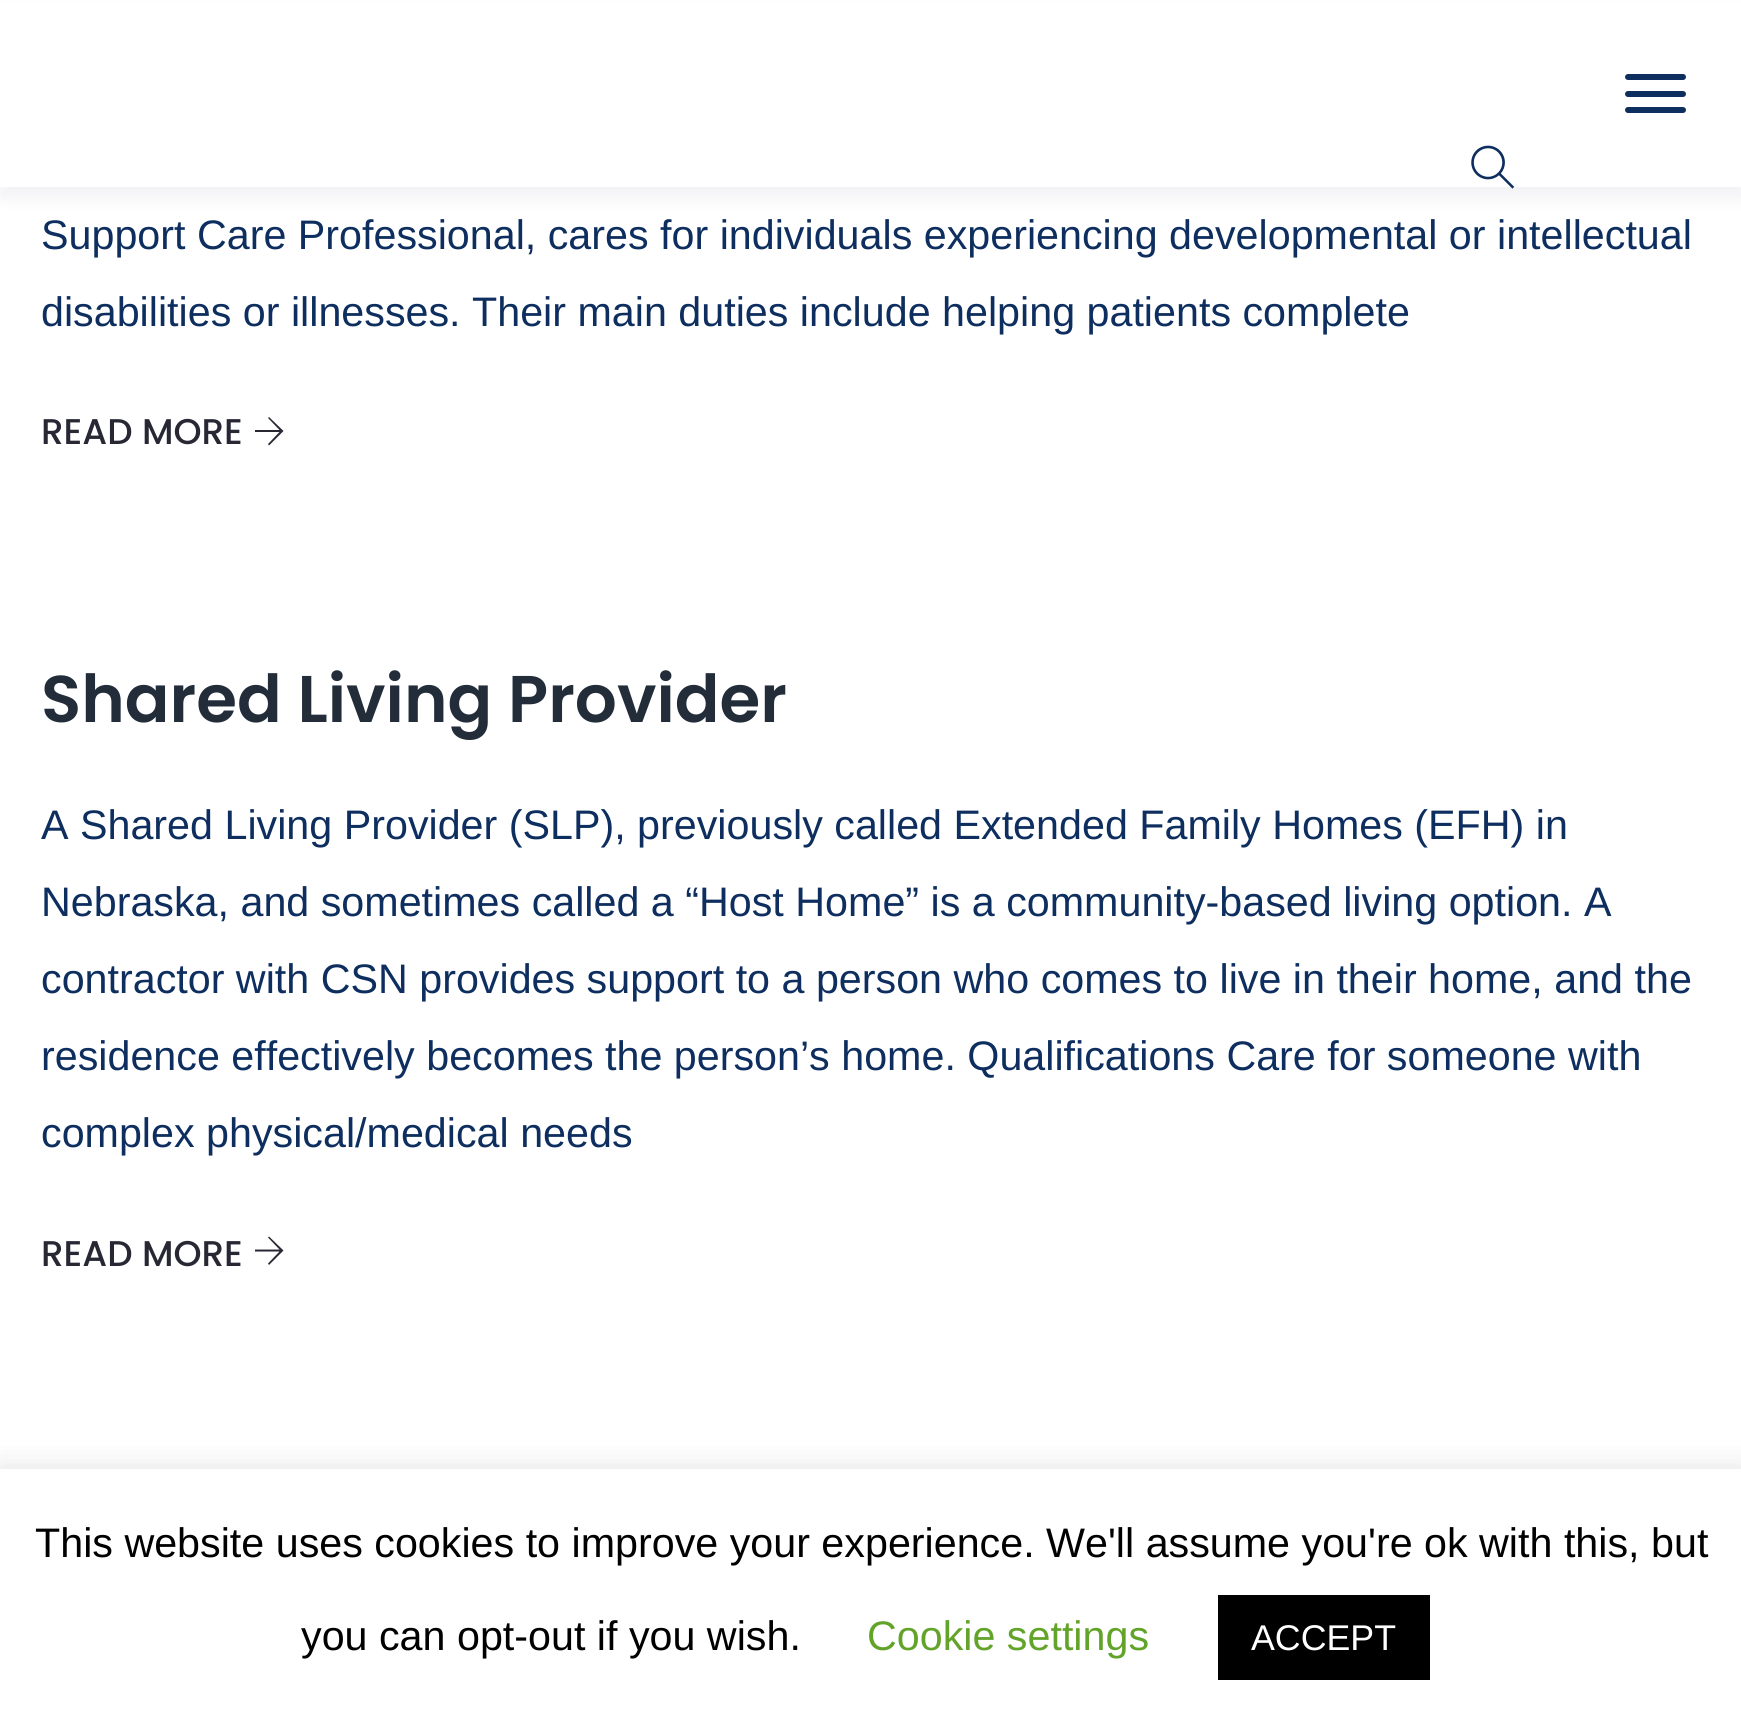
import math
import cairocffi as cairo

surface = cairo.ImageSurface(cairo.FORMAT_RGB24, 1741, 1725)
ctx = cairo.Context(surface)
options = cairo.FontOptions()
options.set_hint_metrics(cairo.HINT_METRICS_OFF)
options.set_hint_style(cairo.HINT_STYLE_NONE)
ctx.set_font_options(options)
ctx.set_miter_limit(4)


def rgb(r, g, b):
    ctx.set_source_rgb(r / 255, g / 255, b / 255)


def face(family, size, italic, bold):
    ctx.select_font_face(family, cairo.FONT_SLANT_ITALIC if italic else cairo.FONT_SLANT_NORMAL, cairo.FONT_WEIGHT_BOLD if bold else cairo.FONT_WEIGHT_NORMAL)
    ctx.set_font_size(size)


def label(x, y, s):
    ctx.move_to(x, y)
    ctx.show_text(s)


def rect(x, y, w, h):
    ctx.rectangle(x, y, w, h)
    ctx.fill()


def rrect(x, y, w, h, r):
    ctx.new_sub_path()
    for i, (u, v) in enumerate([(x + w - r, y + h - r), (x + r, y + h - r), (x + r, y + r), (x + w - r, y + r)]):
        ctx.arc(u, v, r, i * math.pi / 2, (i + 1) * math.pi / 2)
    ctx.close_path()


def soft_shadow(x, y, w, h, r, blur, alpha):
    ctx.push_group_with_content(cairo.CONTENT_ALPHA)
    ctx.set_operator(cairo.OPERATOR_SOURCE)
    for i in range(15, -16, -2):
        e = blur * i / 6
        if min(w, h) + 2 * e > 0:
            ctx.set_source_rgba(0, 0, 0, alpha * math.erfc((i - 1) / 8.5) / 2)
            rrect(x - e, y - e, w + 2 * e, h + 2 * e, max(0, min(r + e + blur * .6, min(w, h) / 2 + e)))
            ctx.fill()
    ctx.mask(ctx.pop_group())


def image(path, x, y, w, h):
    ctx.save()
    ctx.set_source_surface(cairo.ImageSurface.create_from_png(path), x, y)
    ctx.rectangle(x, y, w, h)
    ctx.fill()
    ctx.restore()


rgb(255, 255, 255)
ctx.paint()
rgb(12, 0, 46)
soft_shadow(0, 11, 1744, 187, 0, 8, 0.06)
rgb(255, 255, 255)
rect(0, 3, 1741, 184)
rgb(13, 46, 94)
rrect(1625, 74, 61, 6, 3)
ctx.fill()
rrect(1625, 91, 61, 6, 3)
ctx.fill()
rrect(1625, 107, 61, 6, 3)
ctx.fill()
image('image0.png', 1471, 145, 44, 44)
face('Liberation Sans', 41.25, 0, 0)
label(41, 249, 'Support Care Professional, cares for individuals experiencing developmental or intellectual')
label(41, 326, 'disabilities or illnesses. Their main duties include helping patients complete')
face('Poppins Medium', 35.75, 0, 0)
rgb(40, 40, 53)
label(41, 444, 'READ MORE')
ctx.new_path()
ctx.move_to(283.5, 431)
ctx.line_to(269, 445.5)
ctx.line_to(268, 444)
ctx.line_to(279.5, 432)
ctx.line_to(255, 432)
ctx.line_to(255, 430)
ctx.line_to(279.5, 430)
ctx.line_to(268, 418)
ctx.line_to(269, 417)
ctx.close_path()
ctx.fill()
face('Poppins SemiBold', 66, 0, 0)
rgb(34, 45, 57)
label(41, 722, 'Shared Living Provider')
face('Liberation Sans', 41.25, 0, 0)
rgb(13, 46, 94)
label(41, 839, 'A Shared Living Provider (SLP), previously called Extended Family Homes (EFH) in')
label(41, 916, 'Nebraska, and sometimes called a “Host Home” is a community-based living option. A')
label(41, 993, 'contractor with CSN provides support to a person who comes to live in their home, and the')
label(41, 1070, 'residence effectively becomes the person’s home. Qualifications Care for someone with')
label(41, 1147, 'complex physical/medical needs')
face('Poppins Medium', 35.75, 0, 0)
rgb(40, 40, 53)
label(41, 1266, 'READ MORE')
ctx.new_path()
ctx.move_to(283.5, 1250.5)
ctx.line_to(269, 1265)
ctx.line_to(268, 1263.5)
ctx.line_to(279.5, 1251.5)
ctx.line_to(255, 1251.5)
ctx.line_to(255, 1249.5)
ctx.line_to(279.5, 1249.5)
ctx.line_to(268, 1237.5)
ctx.line_to(269, 1236.5)
ctx.close_path()
ctx.fill()
ctx.save()
ctx.rectangle(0, 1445, 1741, 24)
ctx.clip()
rgb(172, 171, 171)
soft_shadow(0, 1466, 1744, 258, 0, 14, 0.3)
ctx.restore()
face('Liberation Sans', 41.25, 0, 0)
rgb(0, 0, 0)
label(35, 1557, 'This website uses cookies to improve your experience. We\'ll assume you\'re ok with this, but')
label(301, 1650, 'you can opt-out if you wish.')
rgb(98, 163, 41)
label(867, 1650, 'Cookie settings')
rgb(0, 0, 0)
rect(1218, 1595, 212, 85)
face('Liberation Sans', 35.75, 0, 0)
rgb(255, 255, 255)
label(1251, 1650, 'ACCEPT')
surface.write_to_png('render.png')
